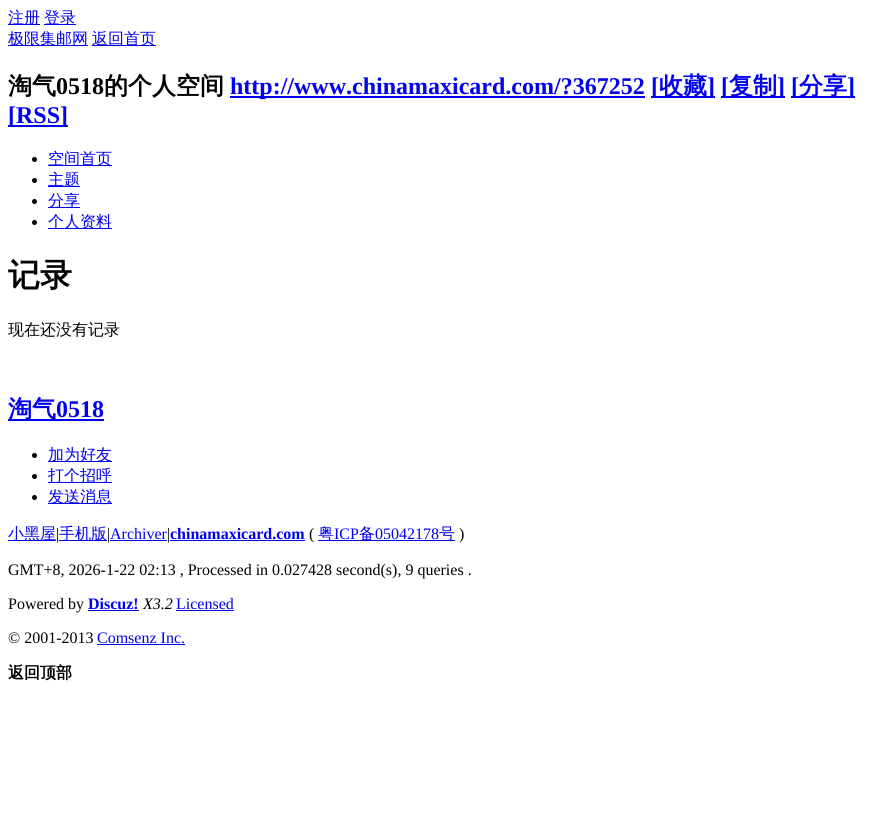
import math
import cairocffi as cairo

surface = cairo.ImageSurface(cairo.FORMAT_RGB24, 891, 816)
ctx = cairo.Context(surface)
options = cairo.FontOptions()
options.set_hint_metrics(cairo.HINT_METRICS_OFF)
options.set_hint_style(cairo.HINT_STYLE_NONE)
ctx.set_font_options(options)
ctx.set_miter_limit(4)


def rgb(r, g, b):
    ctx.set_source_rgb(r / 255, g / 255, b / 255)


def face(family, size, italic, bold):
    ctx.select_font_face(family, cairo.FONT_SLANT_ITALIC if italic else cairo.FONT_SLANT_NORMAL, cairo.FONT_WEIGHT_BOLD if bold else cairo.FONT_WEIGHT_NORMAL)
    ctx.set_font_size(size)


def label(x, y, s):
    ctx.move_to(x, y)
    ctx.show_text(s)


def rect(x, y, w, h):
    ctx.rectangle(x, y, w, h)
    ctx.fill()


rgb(255, 255, 255)
ctx.paint()
rgb(0, 0, 238)
rect(8, 24, 32, 1)
face('WenQuanYi Zen Hei Medium', 16, 0, 0)
label(8, 23, '注册')
rect(44, 24, 32, 1)
label(44, 23, '登录')
rect(8, 45, 80, 1)
label(8, 44, '极限集邮网')
rect(92, 45, 64, 1)
label(92, 44, '返回首页')
face('WenQuanYi Zen Hei', 24, 0, 1)
rgb(0, 0, 0)
label(8, 94, '淘气')
face('Liberation Serif', 24, 0, 1)
label(56, 94, '0518')
face('WenQuanYi Zen Hei', 24, 0, 1)
label(104, 94, '的个人空间')
rgb(0, 0, 238)
rect(230, 96, 415, 2)
face('Liberation Serif', 24, 0, 1)
label(230, 94, 'http://www.chinamaxicard.com/?367252')
rect(651, 96, 64, 2)
label(651, 94, '[')
face('WenQuanYi Zen Hei', 24, 0, 1)
label(659, 94, '收藏')
face('Liberation Serif', 24, 0, 1)
label(707, 94, ']')
rect(721, 96, 64, 2)
label(721, 94, '[')
face('WenQuanYi Zen Hei', 24, 0, 1)
label(729, 94, '复制')
face('Liberation Serif', 24, 0, 1)
label(777, 94, ']')
rect(791, 96, 64, 2)
label(791, 94, '[')
face('WenQuanYi Zen Hei', 24, 0, 1)
label(799, 94, '分享')
face('Liberation Serif', 24, 0, 1)
label(847, 94, ']')
rect(8, 125, 60, 2)
label(8, 123, '[RSS]')
rgb(0, 0, 0)
ctx.new_path()
ctx.arc(34.5, 159.5, 2.5, 0, 2 * math.pi)
ctx.fill()
rgb(0, 0, 238)
rect(48, 165, 64, 1)
face('WenQuanYi Zen Hei Medium', 16, 0, 0)
label(48, 164, '空间首页')
rgb(0, 0, 0)
ctx.new_path()
ctx.arc(34.5, 180.5, 2.5, 0, 2 * math.pi)
ctx.fill()
rgb(0, 0, 238)
rect(48, 186, 32, 1)
label(48, 185, '主题')
rgb(0, 0, 0)
ctx.new_path()
ctx.arc(34.5, 201.5, 2.5, 0, 2 * math.pi)
ctx.fill()
rgb(0, 0, 238)
rect(48, 207, 32, 1)
label(48, 206, '分享')
rgb(0, 0, 0)
ctx.new_path()
ctx.arc(34.5, 222.5, 2.5, 0, 2 * math.pi)
ctx.fill()
rgb(0, 0, 238)
rect(48, 228, 64, 1)
label(48, 227, '个人资料')
face('WenQuanYi Zen Hei', 32, 0, 1)
rgb(0, 0, 0)
label(8, 286, '记录')
face('WenQuanYi Zen Hei Medium', 16, 0, 0)
label(8, 335, '现在还没有记录')
rgb(0, 0, 238)
rect(8, 419, 96, 2)
face('WenQuanYi Zen Hei', 24, 0, 1)
label(8, 417, '淘气')
face('Liberation Serif', 24, 0, 1)
label(56, 417, '0518')
rgb(0, 0, 0)
ctx.new_path()
ctx.arc(34.5, 455.5, 2.5, 0, 2 * math.pi)
ctx.fill()
rgb(0, 0, 238)
rect(48, 461, 64, 1)
face('WenQuanYi Zen Hei Medium', 16, 0, 0)
label(48, 460, '加为好友')
rgb(0, 0, 0)
ctx.new_path()
ctx.arc(34.5, 476.5, 2.5, 0, 2 * math.pi)
ctx.fill()
rgb(0, 0, 238)
rect(48, 482, 64, 1)
label(48, 481, '打个招呼')
rgb(0, 0, 0)
ctx.new_path()
ctx.arc(34.5, 497.5, 2.5, 0, 2 * math.pi)
ctx.fill()
rgb(0, 0, 238)
rect(48, 503, 64, 1)
label(48, 502, '发送消息')
rect(8, 540, 48, 1)
label(8, 539, '小黑屋')
face('Liberation Serif', 16, 0, 0)
rgb(0, 0, 0)
label(56, 539, '|')
rgb(0, 0, 238)
rect(59, 540, 48, 1)
face('WenQuanYi Zen Hei Medium', 16, 0, 0)
label(59, 539, '手机版')
face('Liberation Serif', 16, 0, 0)
rgb(0, 0, 0)
label(107, 539, '|')
rgb(0, 0, 238)
label(110, 539, 'Archiver')
rect(110, 540, 57, 1)
rgb(0, 0, 0)
label(167, 539, '|')
face('Liberation Serif', 16, 0, 1)
rgb(0, 0, 238)
label(170, 539, 'chinamaxicard.com')
rect(170, 540, 135, 1)
face('Liberation Serif', 16, 0, 0)
rgb(0, 0, 0)
label(309, 539, '(')
rgb(0, 0, 238)
rect(318, 540, 137, 1)
face('WenQuanYi Zen Hei Medium', 16, 0, 0)
label(318, 539, '粤')
face('Liberation Serif', 16, 0, 0)
label(334, 539, 'ICP')
face('WenQuanYi Zen Hei Medium', 16, 0, 0)
label(359, 539, '备')
face('Liberation Serif', 16, 0, 0)
label(375, 539, '05042178')
face('WenQuanYi Zen Hei Medium', 16, 0, 0)
label(439, 539, '号')
face('Liberation Serif', 16, 0, 0)
rgb(0, 0, 0)
label(459, 539, ')')
label(8, 575, 'GMT+8, 2026-1-22 02:13 , Processed in 0.027428 second(s), 9 queries .')
label(8, 609, 'Powered by')
face('Liberation Serif', 16, 0, 1)
rgb(0, 0, 238)
label(88, 609, 'Discuz!')
rect(88, 610, 51, 1)
face('Liberation Serif', 16, 1, 0)
rgb(0, 0, 0)
label(143, 609, 'X3.2')
face('Liberation Serif', 16, 0, 0)
rgb(0, 0, 238)
label(176, 609, 'Licensed')
rect(176, 610, 58, 1)
rgb(0, 0, 0)
label(8, 643, '© 2001-2013')
rgb(0, 0, 238)
label(97, 643, 'Comsenz Inc.')
rect(97, 644, 88, 1)
face('WenQuanYi Zen Hei', 16, 0, 1)
rgb(0, 0, 0)
label(8, 678, '返回顶部')
surface.write_to_png('render.png')
